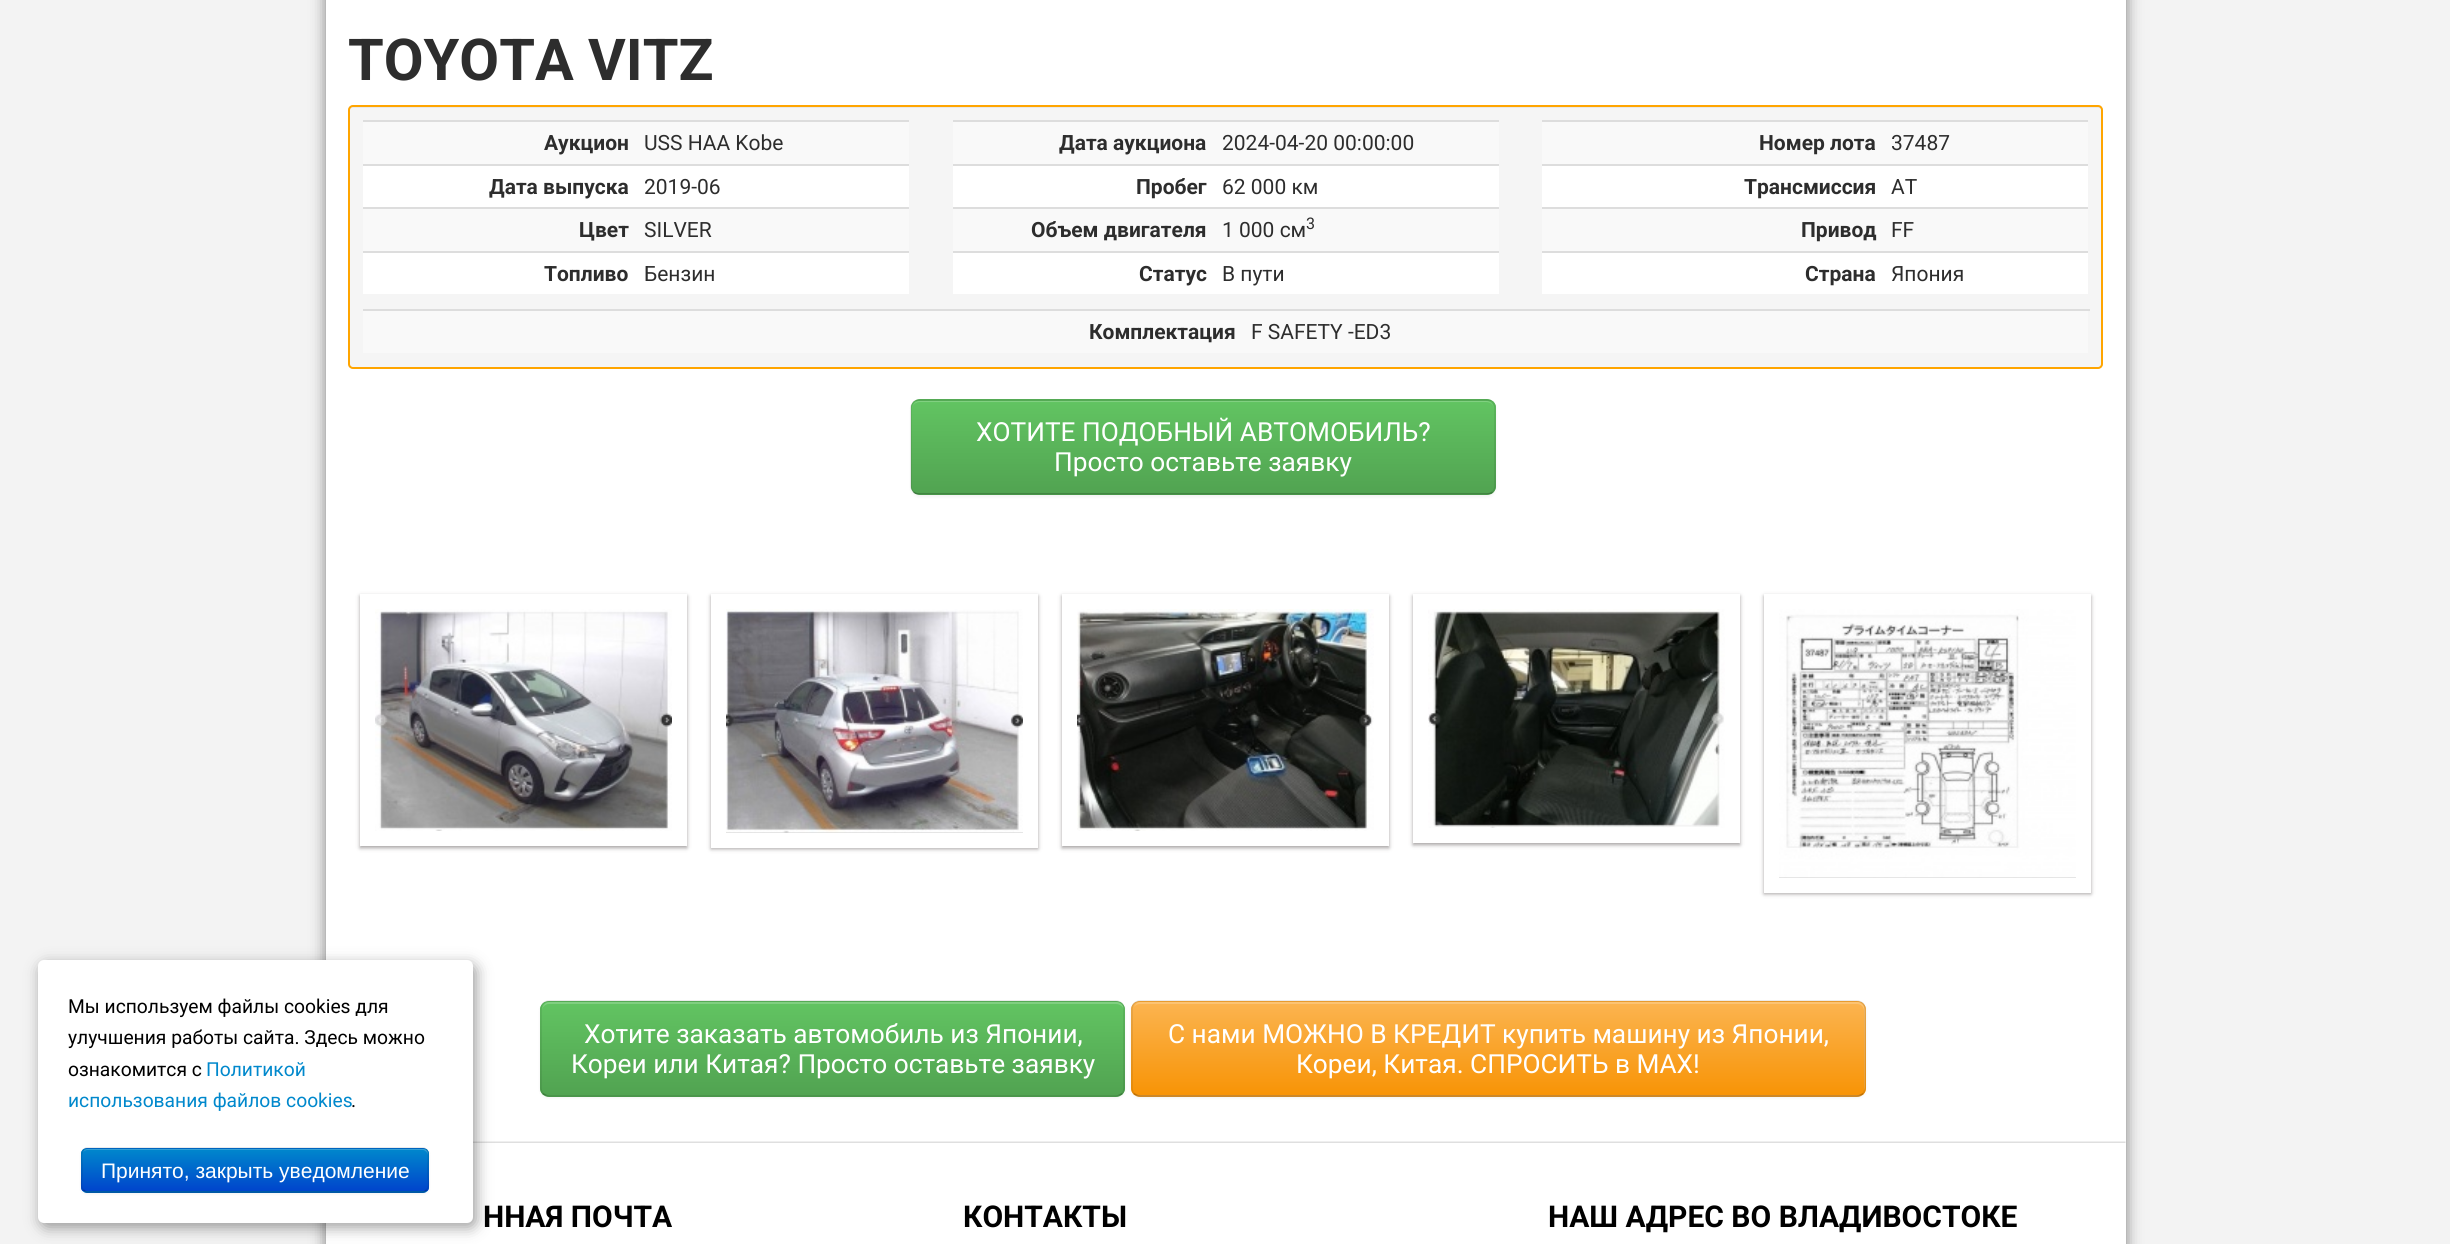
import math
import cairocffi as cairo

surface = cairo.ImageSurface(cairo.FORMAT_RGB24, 2450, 1244)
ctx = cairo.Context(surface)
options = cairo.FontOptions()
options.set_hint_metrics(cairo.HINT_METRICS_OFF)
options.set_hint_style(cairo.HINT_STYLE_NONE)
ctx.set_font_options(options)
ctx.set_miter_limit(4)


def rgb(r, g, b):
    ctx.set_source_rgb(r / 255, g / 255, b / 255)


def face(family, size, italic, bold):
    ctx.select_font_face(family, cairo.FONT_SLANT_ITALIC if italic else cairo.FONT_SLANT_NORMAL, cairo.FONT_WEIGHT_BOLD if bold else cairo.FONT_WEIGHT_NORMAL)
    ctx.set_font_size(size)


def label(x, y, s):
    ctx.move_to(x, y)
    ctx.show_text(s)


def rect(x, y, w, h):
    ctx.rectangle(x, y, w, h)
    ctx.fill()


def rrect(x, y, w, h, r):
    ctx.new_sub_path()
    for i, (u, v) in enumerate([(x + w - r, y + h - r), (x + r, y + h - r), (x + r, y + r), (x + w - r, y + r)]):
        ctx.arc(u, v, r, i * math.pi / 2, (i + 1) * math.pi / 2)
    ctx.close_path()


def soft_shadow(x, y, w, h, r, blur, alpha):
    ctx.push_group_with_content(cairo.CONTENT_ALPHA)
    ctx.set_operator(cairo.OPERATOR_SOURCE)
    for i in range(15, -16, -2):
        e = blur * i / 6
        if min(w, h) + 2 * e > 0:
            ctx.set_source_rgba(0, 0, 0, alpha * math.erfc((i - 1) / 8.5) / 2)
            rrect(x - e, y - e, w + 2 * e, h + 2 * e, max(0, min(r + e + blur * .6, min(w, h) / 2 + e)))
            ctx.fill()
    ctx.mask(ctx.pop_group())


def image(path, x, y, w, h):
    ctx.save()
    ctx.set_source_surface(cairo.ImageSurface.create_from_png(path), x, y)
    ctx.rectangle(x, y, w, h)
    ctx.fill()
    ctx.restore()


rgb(243, 243, 243)
ctx.paint()
rgb(125, 125, 125)
soft_shadow(326, -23, 1800, 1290, 0, 7.5, 1)
rgb(255, 255, 255)
rect(326, 0, 1800, 1244)
face('Roboto', 57.75, 0, 1)
rgb(45, 45, 45)
label(348, 80, 'TOYOTA VITZ')
rgb(245, 245, 245)
rrect(348, 105, 1755, 264, 5)
ctx.fill()
rgb(233, 233, 233)
ctx.new_path()
ctx.move_to(352, 108)
ctx.line_to(2098, 108)
ctx.curve_to(2100, 108, 2102, 109, 2102, 111)
ctx.line_to(2102, 110)
ctx.curve_to(2102, 108, 2101, 107, 2099, 107)
ctx.line_to(353, 107)
ctx.curve_to(351, 107, 350, 108, 350, 110)
ctx.line_to(350, 111)
ctx.curve_to(350, 109, 351, 108, 352, 108)
ctx.close_path()
ctx.fill()
rrect(349, 106, 1753, 262, 4)
rgb(255, 165, 0)
ctx.stroke()
rgb(249, 249, 249)
rect(363, 122, 546, 42)
face('Roboto', 21, 0, 1)
rgb(45, 45, 45)
label(544, 150, 'Аукцион')
rgb(221, 221, 221)
rect(363, 120, 546, 2)
face('Roboto', 21, 0, 0)
rgb(45, 45, 45)
label(644, 150, 'USS HAA Kobe')
rgb(255, 255, 255)
rect(363, 166, 546, 41)
face('Roboto', 21, 0, 1)
rgb(45, 45, 45)
label(489, 194, 'Дата выпуска')
rgb(221, 221, 221)
rect(363, 164, 546, 2)
face('Roboto', 21, 0, 0)
rgb(45, 45, 45)
label(644, 194, '2019-06')
rgb(249, 249, 249)
rect(363, 209, 546, 42)
face('Roboto', 21, 0, 1)
rgb(45, 45, 45)
label(579, 237, 'Цвет')
rgb(221, 221, 221)
rect(363, 207, 546, 2)
face('Roboto', 21, 0, 0)
rgb(45, 45, 45)
label(644, 237, 'SILVER')
rgb(255, 255, 255)
rect(363, 253, 546, 41)
face('Roboto', 21, 0, 1)
rgb(45, 45, 45)
label(544, 281, 'Топливо')
rgb(221, 221, 221)
rect(363, 251, 546, 2)
face('Roboto', 21, 0, 0)
rgb(45, 45, 45)
label(644, 281, 'Бензин')
rgb(249, 249, 249)
rect(953, 122, 546, 42)
face('Roboto', 21, 0, 1)
rgb(45, 45, 45)
label(1059, 150, 'Дата аукциона')
rgb(221, 221, 221)
rect(953, 120, 546, 2)
face('Roboto', 21, 0, 0)
rgb(45, 45, 45)
label(1222, 150, '2024-04-20 00:00:00')
rgb(255, 255, 255)
rect(953, 166, 546, 41)
face('Roboto', 21, 0, 1)
rgb(45, 45, 45)
label(1136, 194, 'Пробег')
rgb(221, 221, 221)
rect(953, 164, 546, 2)
face('Roboto', 21, 0, 0)
rgb(45, 45, 45)
label(1222, 194, '62 000 км')
rgb(249, 249, 249)
rect(953, 209, 546, 42)
face('Roboto', 21, 0, 1)
rgb(45, 45, 45)
label(1031, 237, 'Объем двигателя')
rgb(221, 221, 221)
rect(953, 207, 546, 2)
face('Roboto', 21, 0, 0)
rgb(45, 45, 45)
label(1222, 237, '1 000 cм')
face('Roboto', 16, 0, 0)
label(1306, 229, '3')
rgb(255, 255, 255)
rect(953, 253, 546, 41)
face('Roboto', 21, 0, 1)
rgb(45, 45, 45)
label(1139, 281, 'Статус')
rgb(221, 221, 221)
rect(953, 251, 546, 2)
face('Roboto', 21, 0, 0)
rgb(45, 45, 45)
label(1222, 281, 'В пути')
rgb(249, 249, 249)
rect(1542, 122, 546, 42)
face('Roboto', 21, 0, 1)
rgb(45, 45, 45)
label(1759, 150, 'Номер лота')
rgb(221, 221, 221)
rect(1542, 120, 546, 2)
face('Roboto', 21, 0, 0)
rgb(45, 45, 45)
label(1891, 150, '37487')
rgb(255, 255, 255)
rect(1542, 166, 546, 41)
face('Roboto', 21, 0, 1)
rgb(45, 45, 45)
label(1744, 194, 'Трансмиссия')
rgb(221, 221, 221)
rect(1542, 164, 546, 2)
face('Roboto', 21, 0, 0)
rgb(45, 45, 45)
label(1891, 194, 'AT')
rgb(249, 249, 249)
rect(1542, 209, 546, 42)
face('Roboto', 21, 0, 1)
rgb(45, 45, 45)
label(1801, 237, 'Привод')
rgb(221, 221, 221)
rect(1542, 207, 546, 2)
face('Roboto', 21, 0, 0)
rgb(45, 45, 45)
label(1891, 237, 'FF')
rgb(255, 255, 255)
rect(1542, 253, 546, 41)
face('Roboto', 21, 0, 1)
rgb(45, 45, 45)
label(1805, 281, 'Страна')
rgb(221, 221, 221)
rect(1542, 251, 546, 2)
face('Roboto', 21, 0, 0)
rgb(45, 45, 45)
label(1891, 281, 'Япония')
rgb(249, 249, 249)
rect(363, 311, 1725, 42)
face('Roboto', 21, 0, 1)
rgb(45, 45, 45)
label(1089, 339, 'Комплектация')
rgb(221, 221, 221)
rect(363, 309, 1727, 2)
face('Roboto', 21, 0, 0)
rgb(45, 45, 45)
label(1251, 339, 'F SAFETY -ED3')
rgb(0, 0, 0)
soft_shadow(911, 401, 585, 96, 9, 1.5, 0.05)
rgb(91, 183, 91)
rrect(911, 399, 585, 96, 9)
ctx.fill()
ctx.save()
rrect(911, 399, 585, 96, 9)
ctx.clip()
gradient = cairo.LinearGradient(1203, 401, 1203, 494)
gradient.add_color_stop_rgba(0, 0.384, 0.769, 0.384, 1)
gradient.add_color_stop_rgba(1, 0.318, 0.639, 0.318, 1)
ctx.set_source(gradient)
rect(911, 401, 585, 93)
ctx.restore()
rgb(129, 208, 129)
ctx.new_path()
ctx.move_to(920, 402)
ctx.line_to(1486, 402)
ctx.curve_to(1491, 402, 1494, 405, 1494, 410)
ctx.curve_to(1494, 405, 1491, 401, 1486, 401)
ctx.line_to(920, 401)
ctx.curve_to(915, 401, 912, 405, 912, 410)
ctx.curve_to(912, 405, 915, 402, 920, 402)
ctx.close_path()
ctx.fill()
ctx.new_path()
ctx.move_to(1492.5, 492)
ctx.curve_to(1491, 493.5, 1488.5, 494, 1486.5, 494)
ctx.line_to(919.5, 494)
ctx.curve_to(917.5, 494, 915, 493.5, 913.5, 492)
ctx.set_source_rgba(0, 0, 0, 0.25)
ctx.set_line_width(1.5)
ctx.stroke()
ctx.new_path()
ctx.move_to(913.5, 492)
ctx.curve_to(912, 490.5, 911, 488, 911, 486)
ctx.line_to(911, 408)
ctx.curve_to(911, 406, 912, 403.5, 913.5, 402)
ctx.curve_to(915, 400.5, 917.5, 400, 919.5, 400)
ctx.line_to(1486.5, 400)
ctx.curve_to(1488.5, 400, 1491, 400.5, 1492.5, 402)
ctx.curve_to(1494, 403.5, 1495, 406, 1495, 408)
ctx.line_to(1495, 486)
ctx.curve_to(1495, 488, 1494, 490.5, 1492.5, 492)
ctx.set_source_rgba(0, 0, 0, 0.1)
ctx.stroke()
face('Roboto', 26.25, 0, 0)
rgb(255, 255, 255)
label(976, 441, 'ХОТИТЕ ПОДОБНЫЙ АВТОМОБИЛЬ?')
label(1054, 471, 'Просто оставьте заявку')
ctx.save()
ctx.set_fill_rule(cairo.FILL_RULE_EVEN_ODD)
ctx.new_path()
ctx.move_to(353, 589)
ctx.line_to(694, 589)
ctx.line_to(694, 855)
ctx.line_to(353, 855)
ctx.close_path()
ctx.move_to(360, 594)
ctx.line_to(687, 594)
ctx.line_to(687, 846)
ctx.line_to(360, 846)
ctx.close_path()
ctx.clip()
rgb(34, 25, 25)
soft_shadow(360, 596, 327, 252, 0, 2, 0.4)
ctx.restore()
image('image0.png', 375, 609, 297, 222)
rgb(34, 25, 25)
soft_shadow(711, 596, 327, 253, 0, 2, 0.4)
rgb(255, 255, 255)
rect(711, 594, 327, 254)
rgb(204, 204, 204)
rect(726, 832, 297, 1)
image('image1.png', 726, 609, 297, 224)
ctx.save()
ctx.set_fill_rule(cairo.FILL_RULE_EVEN_ODD)
ctx.new_path()
ctx.move_to(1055, 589)
ctx.line_to(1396, 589)
ctx.line_to(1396, 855)
ctx.line_to(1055, 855)
ctx.close_path()
ctx.move_to(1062, 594)
ctx.line_to(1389, 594)
ctx.line_to(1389, 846)
ctx.line_to(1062, 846)
ctx.close_path()
ctx.clip()
rgb(34, 25, 25)
soft_shadow(1062, 596, 327, 252, 0, 2, 0.4)
ctx.restore()
image('image2.png', 1077, 609, 297, 222)
ctx.save()
ctx.set_fill_rule(cairo.FILL_RULE_EVEN_ODD)
ctx.new_path()
ctx.move_to(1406, 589)
ctx.line_to(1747, 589)
ctx.line_to(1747, 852)
ctx.line_to(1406, 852)
ctx.close_path()
ctx.move_to(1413, 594)
ctx.line_to(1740, 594)
ctx.line_to(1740, 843)
ctx.line_to(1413, 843)
ctx.close_path()
ctx.clip()
rgb(34, 25, 25)
soft_shadow(1413, 596, 327, 249, 0, 2, 0.4)
ctx.restore()
image('image3.png', 1428, 609, 297, 219)
rgb(34, 25, 25)
soft_shadow(1764, 596, 327, 298, 0, 2, 0.4)
rgb(255, 255, 255)
rect(1764, 594, 327, 299)
rgb(204, 204, 204)
rect(1779, 877, 297, 1)
image('image4.png', 1779, 609, 297, 269)
image('image5.png', 473, 1141, 1653, 2)
rgb(0, 0, 0)
soft_shadow(41, 965, 435, 262, 6, 7.5, 0.4)
rgb(255, 255, 255)
rrect(38, 960, 435, 263, 6)
ctx.fill()
face('Roboto', 19.25, 0, 0)
rgb(0, 0, 0)
label(68, 1013, 'Мы используем файлы cookies для')
label(68, 1044, 'улучшения работы сайта. Здесь можно')
label(68, 1076, 'ознакомится с')
rgb(0, 136, 204)
label(206, 1076, 'Политикой')
label(68, 1107, 'использования файлов cookies')
rgb(0, 0, 0)
label(351, 1107, '.')
rgb(0, 0, 0)
soft_shadow(81, 1149, 348, 45, 6, 1.5, 0.05)
rgb(0, 109, 204)
rrect(81, 1148, 348, 45, 6)
ctx.fill()
ctx.save()
rrect(81, 1148, 348, 45, 6)
ctx.clip()
gradient = cairo.LinearGradient(255, 1149, 255, 1191)
gradient.add_color_stop_rgba(0, 0, 0.533, 0.8, 1)
gradient.add_color_stop_rgba(1, 0, 0.267, 0.8, 1)
ctx.set_source(gradient)
rect(81, 1149, 348, 42)
ctx.restore()
ctx.set_source_rgba(1, 1, 1, 0.2)
ctx.new_path()
ctx.move_to(87, 1150)
ctx.line_to(423, 1150)
ctx.curve_to(425, 1150, 428, 1153, 428, 1155)
ctx.line_to(428, 1154)
ctx.curve_to(428, 1151, 426, 1149, 423, 1149)
ctx.line_to(88, 1149)
ctx.curve_to(86, 1149, 84, 1150, 83, 1152)
ctx.curve_to(84, 1151, 86, 1150, 87, 1150)
ctx.close_path()
ctx.fill()
ctx.new_path()
ctx.move_to(426.5, 1190)
ctx.curve_to(425.5, 1191, 424.5, 1192, 423, 1192)
ctx.line_to(87, 1192)
ctx.curve_to(85.5, 1192, 84.5, 1191, 83.5, 1190)
ctx.set_source_rgba(0, 0, 0, 0.25)
ctx.stroke()
ctx.new_path()
ctx.move_to(83.5, 1190)
ctx.curve_to(80, 1187, 82, 1179, 82, 1175.5)
ctx.line_to(82, 1164.5)
ctx.curve_to(82, 1160.5, 79.5, 1148.5, 87, 1148)
ctx.line_to(423, 1148)
ctx.curve_to(430.5, 1148.5, 428, 1160.5, 428, 1164.5)
ctx.line_to(428, 1175.5)
ctx.curve_to(428, 1179, 430, 1187, 426.5, 1190)
ctx.set_source_rgba(0, 0, 0, 0.1)
ctx.stroke()
face('Liberation Sans', 21, 0, 0)
rgb(255, 255, 255)
label(101, 1178, 'Принято, закрыть уведомление')
rgb(0, 0, 0)
soft_shadow(540, 1002, 585, 96, 9, 1.5, 0.05)
rgb(91, 183, 91)
rrect(540, 1001, 585, 96, 9)
ctx.fill()
ctx.save()
rrect(540, 1001, 585, 96, 9)
ctx.clip()
gradient = cairo.LinearGradient(833, 1002, 833, 1095)
gradient.add_color_stop_rgba(0, 0.384, 0.769, 0.384, 1)
gradient.add_color_stop_rgba(1, 0.318, 0.639, 0.318, 1)
ctx.set_source(gradient)
rect(540, 1002, 585, 93)
ctx.restore()
rgb(129, 207, 129)
ctx.new_path()
ctx.move_to(549, 1004)
ctx.line_to(1116, 1004)
ctx.curve_to(1120, 1004, 1124, 1007, 1124, 1011)
ctx.curve_to(1124, 1006, 1121, 1002, 1116, 1002)
ctx.line_to(550, 1002)
ctx.curve_to(545, 1002, 542, 1006, 542, 1011)
ctx.curve_to(542, 1007, 545, 1004, 549, 1004)
ctx.close_path()
ctx.fill()
ctx.new_path()
ctx.move_to(1122, 1093.5)
ctx.curve_to(1120.5, 1095, 1118, 1096, 1116, 1096)
ctx.line_to(549, 1096)
ctx.curve_to(547, 1096, 544.5, 1095, 543, 1093.5)
ctx.set_source_rgba(0, 0, 0, 0.25)
ctx.stroke()
ctx.new_path()
ctx.move_to(543, 1093.5)
ctx.curve_to(541.5, 1092, 541, 1089.5, 541, 1087.5)
ctx.line_to(541, 1009.5)
ctx.curve_to(541, 1007.5, 541.5, 1005, 543, 1003.5)
ctx.curve_to(544.5, 1002, 547, 1001, 549, 1001)
ctx.line_to(1116, 1001)
ctx.curve_to(1118, 1001, 1120.5, 1002, 1122, 1003.5)
ctx.curve_to(1123.5, 1005, 1124, 1007.5, 1124, 1009.5)
ctx.line_to(1124, 1087.5)
ctx.curve_to(1124, 1089.5, 1123.5, 1092, 1122, 1093.5)
ctx.set_source_rgba(0, 0, 0, 0.1)
ctx.stroke()
face('Roboto', 26.25, 0, 0)
rgb(255, 255, 255)
label(584, 1043, 'Хотите заказать автомобиль из Японии,')
label(571, 1073, 'Кореи или Китая? Просто оставьте заявку')
rgb(0, 0, 0)
soft_shadow(1131, 1002, 735, 96, 9, 1.5, 0.05)
rgb(250, 167, 50)
rrect(1131, 1001, 735, 96, 9)
ctx.fill()
ctx.save()
rrect(1131, 1001, 735, 96, 9)
ctx.clip()
gradient = cairo.LinearGradient(1499, 1002, 1499, 1095)
gradient.add_color_stop_rgba(0, 0.984, 0.706, 0.314, 1)
gradient.add_color_stop_rgba(1, 0.973, 0.58, 0.024, 1)
ctx.set_source(gradient)
rect(1131, 1002, 735, 93)
ctx.restore()
ctx.set_source_rgba(1, 1, 1, 0.2)
ctx.new_path()
ctx.move_to(1140, 1004)
ctx.line_to(1857, 1004)
ctx.curve_to(1861, 1004, 1864, 1007, 1864, 1011)
ctx.line_to(1864, 1089)
ctx.line_to(1864, 1092)
ctx.curve_to(1864, 1090, 1865, 1089, 1865, 1087)
ctx.line_to(1865, 1010)
ctx.curve_to(1865, 1006, 1861, 1002, 1857, 1002)
ctx.line_to(1141, 1002)
ctx.curve_to(1138, 1002, 1135, 1004, 1134, 1007)
ctx.curve_to(1135, 1005, 1138, 1004, 1140, 1004)
ctx.close_path()
ctx.fill()
ctx.new_path()
ctx.move_to(1863, 1093.5)
ctx.curve_to(1861.5, 1095, 1859, 1096, 1857, 1096)
ctx.line_to(1140, 1096)
ctx.curve_to(1138, 1096, 1135.5, 1095, 1134, 1093.5)
ctx.set_source_rgba(0, 0, 0, 0.25)
ctx.stroke()
ctx.new_path()
ctx.move_to(1134, 1093.5)
ctx.curve_to(1132.5, 1092, 1132, 1089.5, 1132, 1087.5)
ctx.line_to(1132, 1009.5)
ctx.curve_to(1132, 1007.5, 1132.5, 1005, 1134, 1003.5)
ctx.curve_to(1135.5, 1002, 1138, 1001, 1140, 1001)
ctx.line_to(1857, 1001)
ctx.curve_to(1859, 1001, 1861.5, 1002, 1863, 1003.5)
ctx.curve_to(1864.5, 1005, 1865, 1007.5, 1865, 1009.5)
ctx.line_to(1865, 1087.5)
ctx.curve_to(1865, 1089.5, 1864.5, 1092, 1863, 1093.5)
ctx.set_source_rgba(0, 0, 0, 0.1)
ctx.stroke()
rgb(255, 255, 255)
label(1168, 1043, 'С нами МОЖНО В КРЕДИТ купить машину из Японии,')
label(1296, 1073, 'Кореи, Китая. СПРОСИТЬ в MAX!')
face('Roboto', 30, 0, 1)
rgb(0, 0, 0)
label(483, 1227, 'ННАЯ ПОЧТА')
label(963, 1227, 'КОНТАКТЫ')
label(1548, 1227, 'НАШ АДРЕС ВО ВЛАДИВОСТОКЕ')
surface.write_to_png('render.png')
